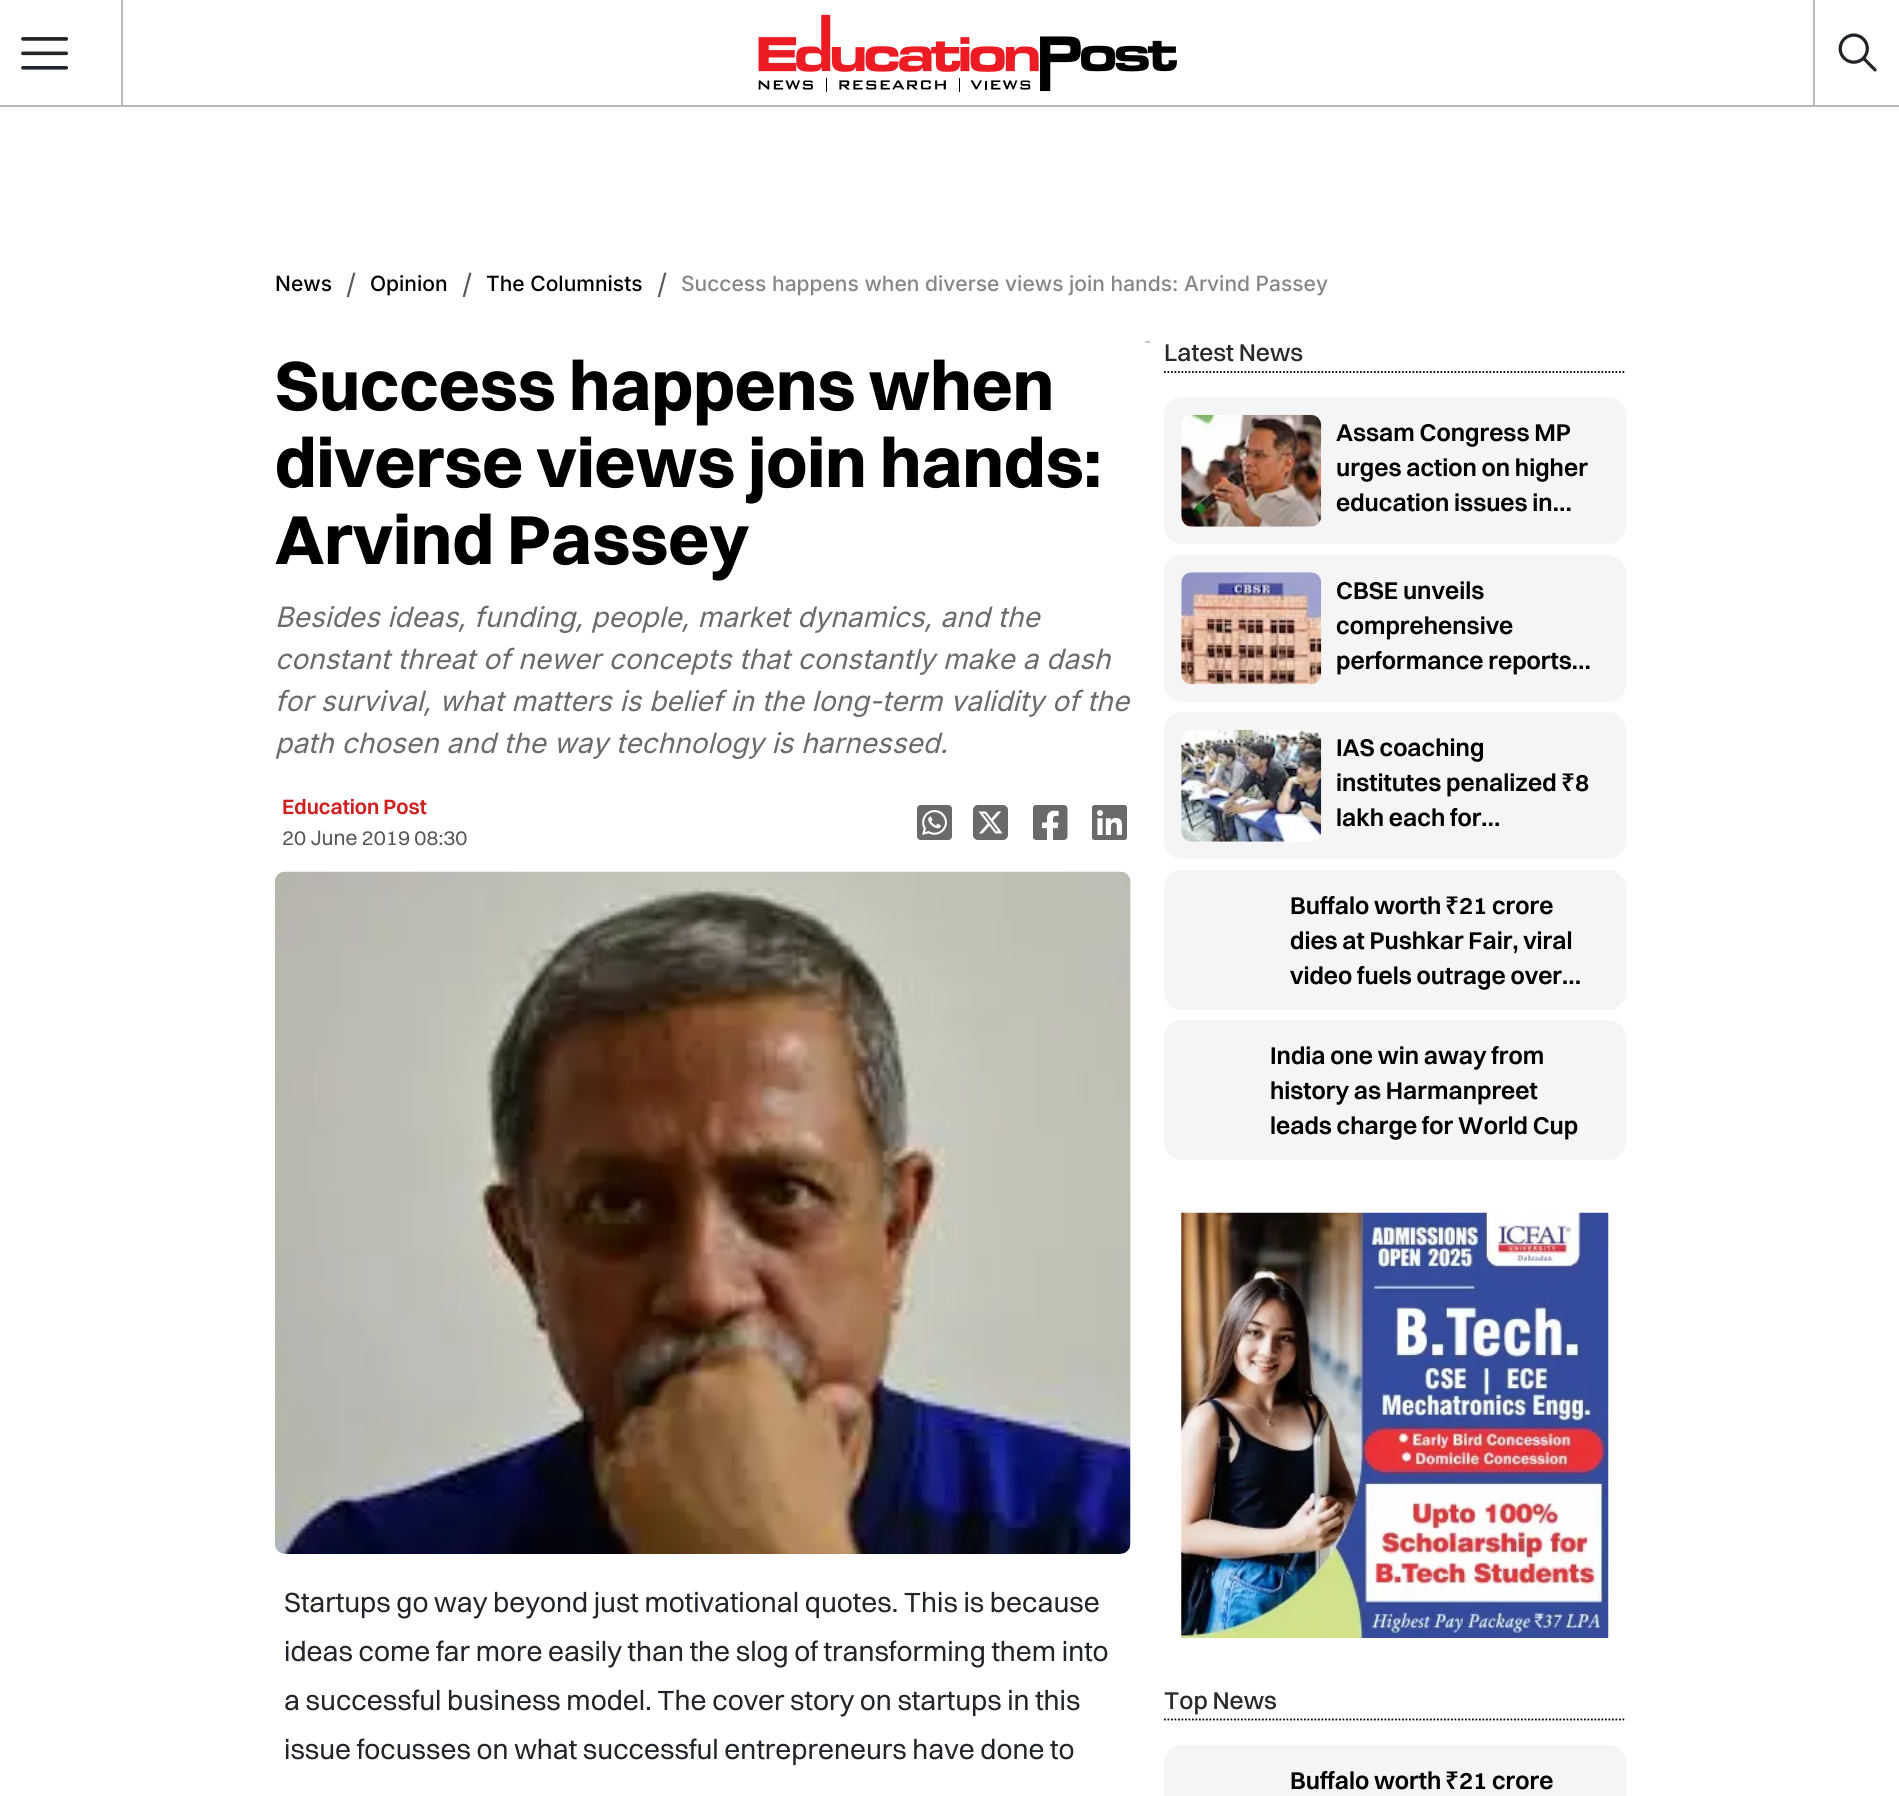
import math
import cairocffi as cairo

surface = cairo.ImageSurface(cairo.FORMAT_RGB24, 1899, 1796)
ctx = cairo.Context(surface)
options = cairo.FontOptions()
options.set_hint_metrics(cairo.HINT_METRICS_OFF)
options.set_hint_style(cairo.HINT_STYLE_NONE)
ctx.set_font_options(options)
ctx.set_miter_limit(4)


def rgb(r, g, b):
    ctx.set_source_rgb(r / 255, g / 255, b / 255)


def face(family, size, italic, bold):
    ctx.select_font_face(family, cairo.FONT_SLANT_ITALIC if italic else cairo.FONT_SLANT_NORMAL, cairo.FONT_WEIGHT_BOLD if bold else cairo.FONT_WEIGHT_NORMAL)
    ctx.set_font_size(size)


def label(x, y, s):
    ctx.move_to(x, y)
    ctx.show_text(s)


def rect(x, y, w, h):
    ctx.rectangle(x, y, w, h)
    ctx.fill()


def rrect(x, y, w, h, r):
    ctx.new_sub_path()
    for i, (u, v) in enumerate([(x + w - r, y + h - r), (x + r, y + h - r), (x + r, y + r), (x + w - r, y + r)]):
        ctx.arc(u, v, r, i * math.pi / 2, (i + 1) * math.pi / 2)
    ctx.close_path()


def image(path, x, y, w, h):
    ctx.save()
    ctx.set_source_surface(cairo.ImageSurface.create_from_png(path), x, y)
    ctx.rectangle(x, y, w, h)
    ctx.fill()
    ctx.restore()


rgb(255, 255, 255)
ctx.paint()
rgb(185, 185, 185)
rect(0, 105, 1899, 2)
rect(121, 0, 2, 105)
image('image0.png', 21, 37, 48, 33)
image('image1.png', 758, 14, 419, 78)
rect(1813, 0, 2, 105)
image('image2.png', 1838, 33, 39, 39)
face('Inter Medium', 21, 0, 0)
rgb(0, 0, 0)
label(275, 291, 'News')
face('Inter', 28, 0, 0)
rgb(89, 92, 95)
label(346, 294, '/')
face('Inter Medium', 21, 0, 0)
rgb(0, 0, 0)
label(370, 291, 'Opinion')
face('Inter', 28, 0, 0)
rgb(89, 92, 95)
label(462, 294, '/')
face('Inter Medium', 21, 0, 0)
rgb(0, 0, 0)
label(486, 291, 'The Columnists')
face('Inter', 28, 0, 0)
rgb(89, 92, 95)
label(657, 294, '/')
face('Inter Medium', 21, 0, 0)
rgb(134, 134, 134)
label(681, 291, 'Success happens when diverse views join hands: Arvind Passey')
rgb(200, 201, 202)
rect(1145, 341, 5, 2)
face('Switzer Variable', 70, 0, 1)
rgb(0, 0, 0)
label(275, 410, 'Success happens when')
label(275, 487, 'diverse views join hands:')
label(275, 564, 'Arvind Passey')
face('Inter', 28, 1, 0)
rgb(107, 107, 107)
label(275, 627, 'Besides ideas, funding, people, market dynamics, and the')
label(275, 669, 'constant threat of newer concepts that constantly make a dash')
label(275, 711, 'for survival, what matters is belief in the long-term validity of the')
label(275, 753, 'path chosen and the way technology is harnessed.')
face('Switzer Variable SemiBold', 21, 0, 0)
rgb(210, 30, 30)
label(282, 814, 'Education Post')
face('Switzer Variable', 21, 0, 0)
rgb(87, 87, 87)
label(282, 845, '20 June 2019 08:30')
image('image3.png', 917, 805, 35, 35)
image('image4.png', 973, 805, 35, 35)
image('image5.png', 1033, 805, 35, 35)
image('image6.png', 1092, 805, 35, 35)
rgb(248, 248, 248)
rrect(275, 872, 856, 682, 11)
ctx.fill()
image('image7.png', 274, 871, 857, 683)
face('Switzer Variable', 28, 0, 0)
rgb(33, 37, 41)
label(284, 1612, 'Startups go way beyond just motivational quotes. This is because')
label(284, 1661, 'ideas come far more easily than the slog of transforming them into')
label(284, 1710, 'a successful business model. The cover story on startups in this')
label(284, 1759, 'issue focusses on what successful entrepreneurs have done to')
ctx.new_path()
ctx.move_to(1164, 372)
ctx.line_to(1626, 372)
rgb(0, 0, 0)
ctx.set_line_width(1.8)
ctx.set_dash([1.75, 1.75])
ctx.stroke()
face('Switzer Variable Medium', 24.5, 0, 0)
rgb(42, 42, 42)
label(1164, 361, 'Latest News')
rgb(245, 245, 245)
rrect(1164, 397, 462, 147, 18)
ctx.fill()
image('image8.png', 1181, 414, 141, 113)
face('Switzer Variable SemiBold', 24.5, 0, 0)
rgb(0, 0, 0)
label(1336, 441, 'Assam Congress MP')
label(1336, 476, 'urges action on higher')
label(1336, 511, 'education issues in…')
rgb(245, 245, 245)
rrect(1164, 555, 462, 147, 18)
ctx.fill()
image('image9.png', 1181, 572, 141, 113)
rgb(0, 0, 0)
label(1336, 599, 'CBSE unveils')
label(1336, 634, 'comprehensive')
label(1336, 669, 'performance reports…')
rgb(245, 245, 245)
rrect(1164, 712, 462, 147, 18)
ctx.fill()
image('image10.png', 1181, 729, 141, 113)
rgb(0, 0, 0)
label(1336, 756, 'IAS coaching')
label(1336, 791, 'institutes penalized')
face('Noto Sans SemiBold', 24.5, 0, 0)
label(1561, 791, '₹')
face('Switzer Variable SemiBold', 24.5, 0, 0)
label(1575, 791, '8')
label(1336, 826, 'lakh each for…')
rgb(245, 245, 245)
rrect(1164, 870, 462, 140, 18)
ctx.fill()
rgb(0, 0, 0)
label(1290, 914, 'Buffalo worth')
face('Noto Sans SemiBold', 24.5, 0, 0)
label(1445, 914, '₹')
face('Switzer Variable SemiBold', 24.5, 0, 0)
label(1459, 914, '21 crore')
label(1290, 949, 'dies at Pushkar Fair, viral')
label(1290, 984, 'video fuels outrage over…')
rgb(245, 245, 245)
rrect(1164, 1020, 462, 140, 18)
ctx.fill()
rgb(0, 0, 0)
label(1270, 1064, 'India one win away from')
label(1270, 1099, 'history as Harmanpreet')
label(1270, 1134, 'leads charge for World Cup')
image('image11.png', 1181, 1212, 428, 426)
ctx.new_path()
ctx.move_to(1164, 1719.5)
ctx.line_to(1626, 1719.5)
ctx.stroke()
face('Switzer Variable Medium', 24.5, 0, 0)
rgb(42, 42, 42)
label(1164, 1709, 'Top News')
rgb(245, 245, 245)
rrect(1164, 1745, 462, 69, 18)
ctx.fill()
face('Switzer Variable SemiBold', 24.5, 0, 0)
rgb(0, 0, 0)
label(1290, 1789, 'Buffalo worth')
face('Noto Sans SemiBold', 24.5, 0, 0)
label(1445, 1789, '₹')
face('Switzer Variable SemiBold', 24.5, 0, 0)
label(1459, 1789, '21 crore')
surface.write_to_png('render.png')
